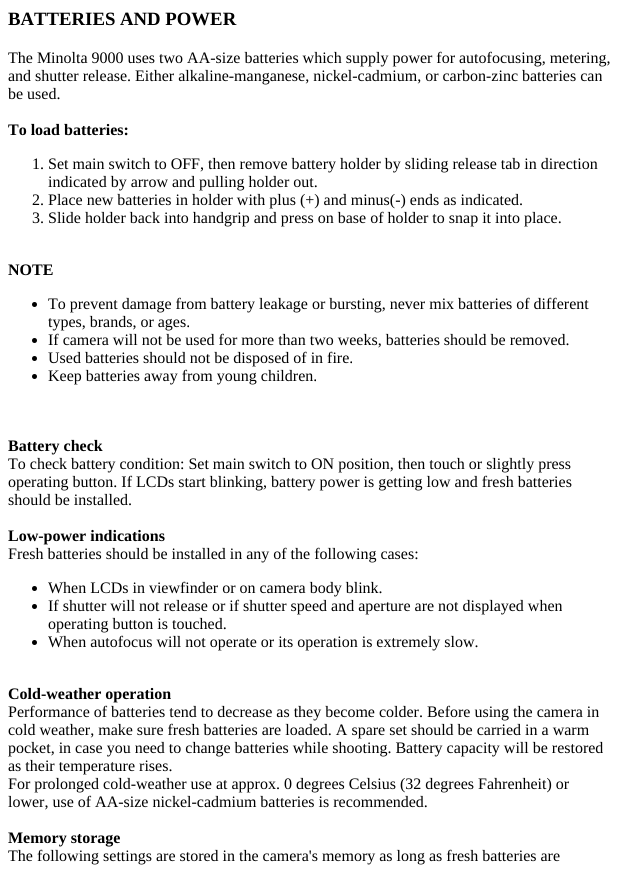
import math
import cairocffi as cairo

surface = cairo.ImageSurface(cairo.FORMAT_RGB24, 620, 872)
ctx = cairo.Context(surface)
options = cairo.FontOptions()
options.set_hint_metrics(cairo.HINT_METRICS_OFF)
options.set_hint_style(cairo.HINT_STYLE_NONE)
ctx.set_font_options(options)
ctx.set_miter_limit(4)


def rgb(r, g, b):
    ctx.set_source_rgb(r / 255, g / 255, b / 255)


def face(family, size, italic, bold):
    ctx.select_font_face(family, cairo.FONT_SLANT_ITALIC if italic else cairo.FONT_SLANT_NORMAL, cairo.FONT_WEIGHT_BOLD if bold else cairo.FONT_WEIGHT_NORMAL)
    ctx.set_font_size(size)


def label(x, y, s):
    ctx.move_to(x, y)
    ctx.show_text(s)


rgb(255, 255, 255)
ctx.paint()
face('Liberation Serif', 18.75, 0, 1)
rgb(0, 0, 0)
label(8, 25, 'BATTERIES AND POWER')
face('Liberation Serif', 16, 0, 0)
label(8, 63, 'The Minolta 9000 uses two AA-size batteries which supply power for autofocusing, metering,')
label(8, 81, 'and shutter release. Either alkaline-manganese, nickel-cadmium, or carbon-zinc batteries can')
label(8, 99, 'be used.')
face('Liberation Serif', 16, 0, 1)
label(8, 135, 'To load batteries:')
face('Liberation Serif', 16, 0, 0)
label(32, 169, '1. Set main switch to OFF, then remove battery holder by sliding release tab in direction')
label(48, 187, 'indicated by arrow and pulling holder out.')
label(32, 205, '2. Place new batteries in holder with plus (+) and minus(-) ends as indicated.')
label(32, 223, '3. Slide holder back into handgrip and press on base of holder to snap it into place.')
face('Liberation Serif', 16, 0, 1)
label(8, 275, 'NOTE')
ctx.new_path()
ctx.arc(34.5, 304.5, 2.5, 0, 2 * math.pi)
ctx.fill()
face('Liberation Serif', 16, 0, 0)
label(48, 309, 'To prevent damage from battery leakage or bursting, never mix batteries of different')
label(48, 327, 'types, brands, or ages.')
ctx.new_path()
ctx.arc(34.5, 340.5, 2.5, 0, 2 * math.pi)
ctx.fill()
label(48, 345, 'If camera will not be used for more than two weeks, batteries should be removed.')
ctx.new_path()
ctx.arc(34.5, 358.5, 2.5, 0, 2 * math.pi)
ctx.fill()
label(48, 363, 'Used batteries should not be disposed of in fire.')
ctx.new_path()
ctx.arc(34.5, 376.5, 2.5, 0, 2 * math.pi)
ctx.fill()
label(48, 381, 'Keep batteries away from young children.')
face('Liberation Serif', 16, 0, 1)
label(8, 451, 'Battery check')
face('Liberation Serif', 16, 0, 0)
label(8, 469, 'To check battery condition: Set main switch to ON position, then touch or slightly press')
label(8, 487, 'operating button. If LCDs start blinking, battery power is getting low and fresh batteries')
label(8, 505, 'should be installed.')
face('Liberation Serif', 16, 0, 1)
label(8, 541, 'Low-power indications')
face('Liberation Serif', 16, 0, 0)
label(8, 559, 'Fresh batteries should be installed in any of the following cases:')
ctx.new_path()
ctx.arc(34.5, 588.5, 2.5, 0, 2 * math.pi)
ctx.fill()
label(48, 593, 'When LCDs in viewfinder or on camera body blink.')
ctx.new_path()
ctx.arc(34.5, 606.5, 2.5, 0, 2 * math.pi)
ctx.fill()
label(48, 611, 'If shutter will not release or if shutter speed and aperture are not displayed when')
label(48, 629, 'operating button is touched.')
ctx.new_path()
ctx.arc(34.5, 642.5, 2.5, 0, 2 * math.pi)
ctx.fill()
label(48, 647, 'When autofocus will not operate or its operation is extremely slow.')
face('Liberation Serif', 16, 0, 1)
label(8, 699, 'Cold-weather operation')
face('Liberation Serif', 16, 0, 0)
label(8, 717, 'Performance of batteries tend to decrease as they become colder. Before using the camera in')
label(8, 735, 'cold weather, make sure fresh batteries are loaded. A spare set should be carried in a warm')
label(8, 753, 'pocket, in case you need to change batteries while shooting. Battery capacity will be restored')
label(8, 771, 'as their temperature rises.')
label(8, 789, 'For prolonged cold-weather use at approx. 0 degrees Celsius (32 degrees Fahrenheit) or')
label(8, 807, 'lower, use of AA-size nickel-cadmium batteries is recommended.')
face('Liberation Serif', 16, 0, 1)
label(8, 843, 'Memory storage')
face('Liberation Serif', 16, 0, 0)
label(8, 861, 'The following settings are stored in the camera\'s memory as long as fresh batteries are')
surface.write_to_png('render.png')
